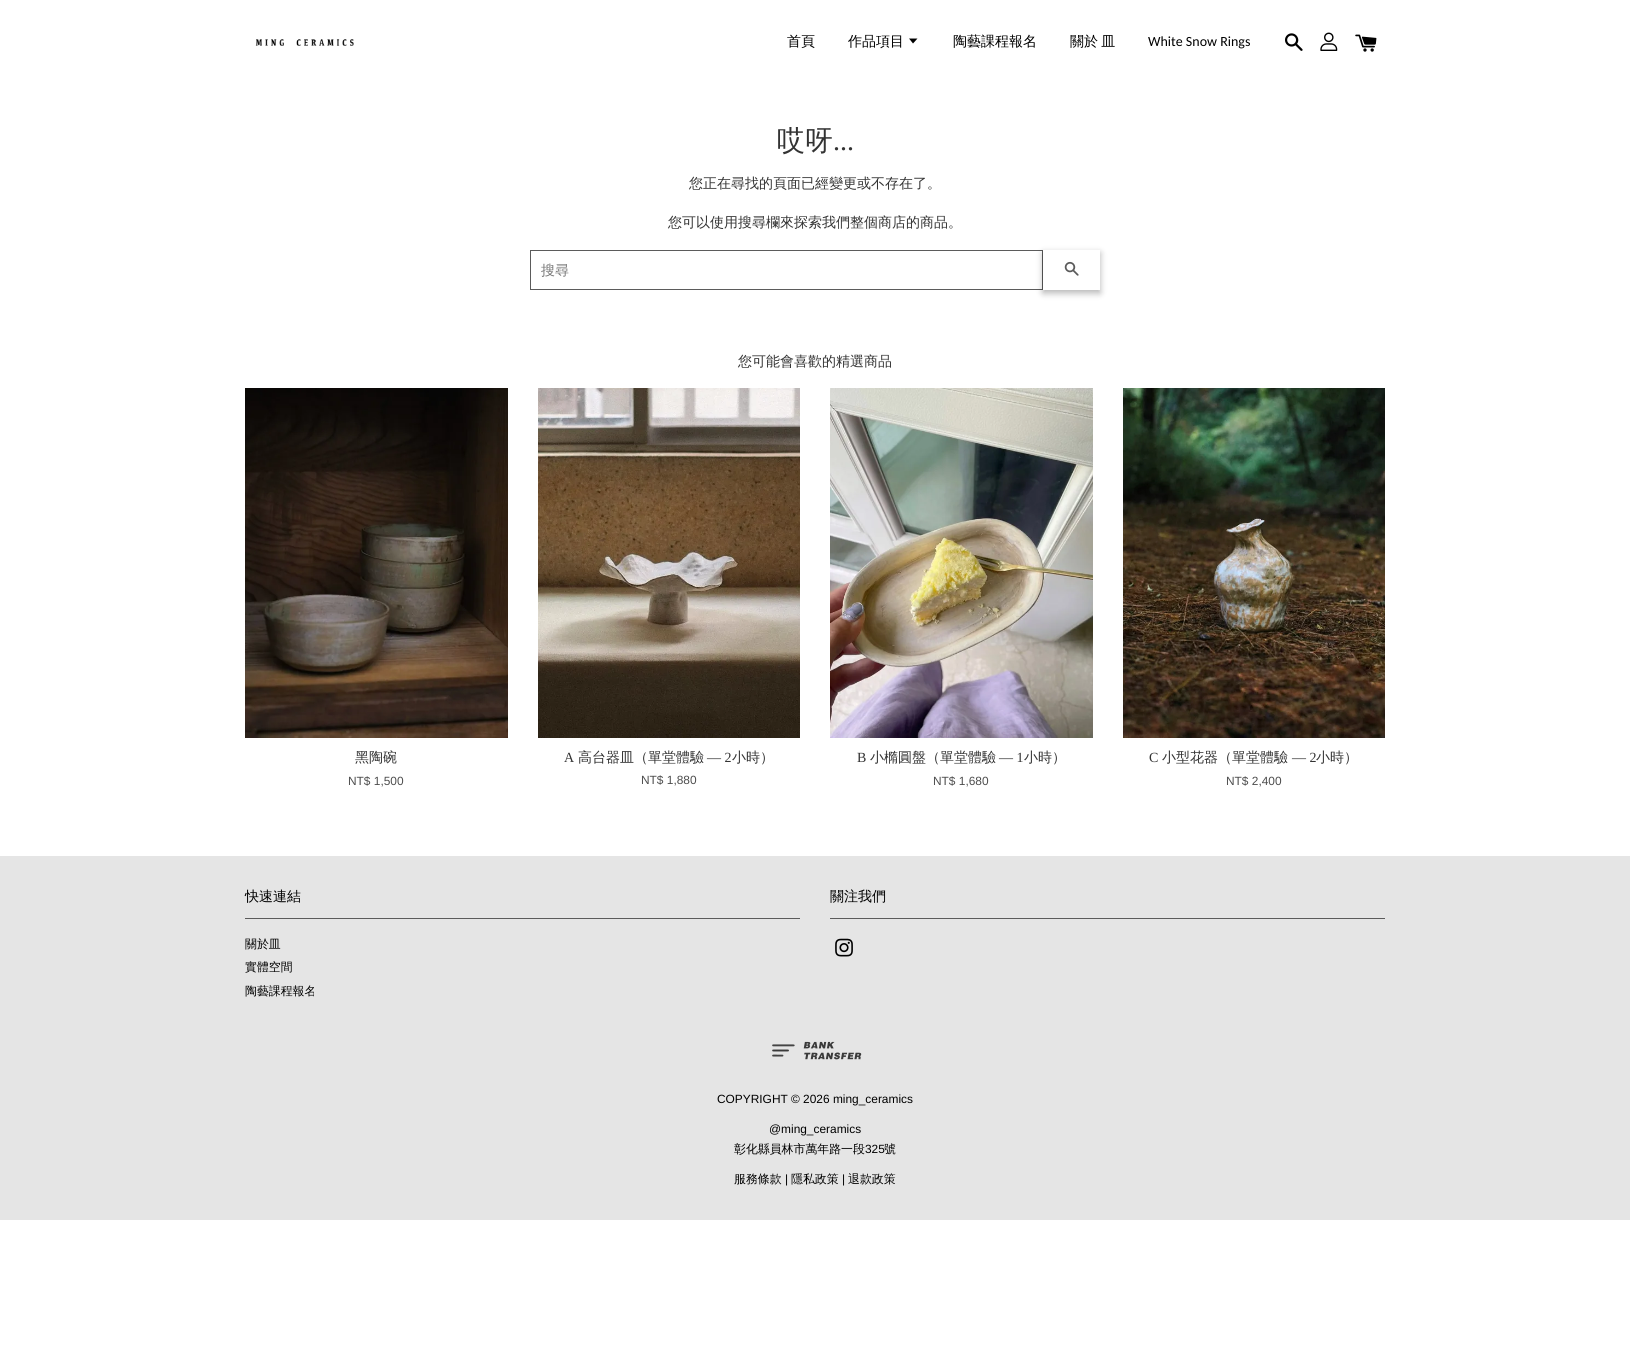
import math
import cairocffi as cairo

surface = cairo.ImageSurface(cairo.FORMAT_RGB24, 1630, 1346)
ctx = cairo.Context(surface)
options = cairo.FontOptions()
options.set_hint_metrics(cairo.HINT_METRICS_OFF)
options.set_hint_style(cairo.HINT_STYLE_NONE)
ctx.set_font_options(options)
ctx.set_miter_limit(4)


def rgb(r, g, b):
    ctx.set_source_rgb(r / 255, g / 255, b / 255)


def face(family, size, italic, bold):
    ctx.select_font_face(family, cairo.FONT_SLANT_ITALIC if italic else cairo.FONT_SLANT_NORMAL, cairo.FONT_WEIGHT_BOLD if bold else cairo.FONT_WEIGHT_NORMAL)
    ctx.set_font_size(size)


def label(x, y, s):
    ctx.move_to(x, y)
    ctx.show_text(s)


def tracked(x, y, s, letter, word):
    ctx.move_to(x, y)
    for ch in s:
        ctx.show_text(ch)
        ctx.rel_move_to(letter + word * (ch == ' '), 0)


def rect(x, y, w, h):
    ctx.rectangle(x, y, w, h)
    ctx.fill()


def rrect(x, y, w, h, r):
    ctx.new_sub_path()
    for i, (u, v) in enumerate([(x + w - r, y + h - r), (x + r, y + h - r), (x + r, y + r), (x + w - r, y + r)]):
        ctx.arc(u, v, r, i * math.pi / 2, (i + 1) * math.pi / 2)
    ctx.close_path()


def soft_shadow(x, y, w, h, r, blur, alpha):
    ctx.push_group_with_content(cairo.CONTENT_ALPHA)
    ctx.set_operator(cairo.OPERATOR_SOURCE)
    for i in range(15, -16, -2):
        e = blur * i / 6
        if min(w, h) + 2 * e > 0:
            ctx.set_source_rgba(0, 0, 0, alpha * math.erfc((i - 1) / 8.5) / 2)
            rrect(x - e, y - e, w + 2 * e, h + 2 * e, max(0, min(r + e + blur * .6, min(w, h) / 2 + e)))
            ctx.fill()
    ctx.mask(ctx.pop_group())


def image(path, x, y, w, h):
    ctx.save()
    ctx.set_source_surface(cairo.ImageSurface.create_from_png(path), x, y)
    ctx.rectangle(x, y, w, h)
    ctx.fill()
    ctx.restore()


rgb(255, 255, 255)
ctx.paint()
image('image0.png', 255, 39, 99, 7)
face('WenQuanYi Zen Hei Medium', 14, 0, 0)
rgb(0, 0, 0)
label(787, 46, '首頁')
label(848, 46, '作品項目')
ctx.new_path()
ctx.move_to(909, 38.5)
ctx.line_to(913, 43.5)
ctx.line_to(917.5, 38.5)
ctx.close_path()
ctx.fill()
label(953, 46, '陶藝課程報名')
tracked(1070, 46, '關於 皿', 0, -1)
face('Carlito', 14, 0, 0)
label(1148, 46, 'White Snow Rings')
image('image1.png', 1285, 33, 18, 18)
image('image2.png', 1320, 32, 18, 19)
image('image3.png', 1355, 34, 22, 18)
face('WenQuanYi Zen Hei Medium', 28, 0, 0)
rgb(51, 51, 51)
label(777, 150, '哎呀')
face('Liberation Serif', 28, 0, 0)
label(833, 150, '...')
face('WenQuanYi Zen Hei Medium', 14, 0, 0)
label(689, 188, '您正在尋找的頁面已經變更或不存在了。')
label(668, 227, '您可以使用搜尋欄來探索我們整個商店的商品。')
ctx.rectangle(530.5, 250.5, 512, 39)
rgb(91, 91, 91)
ctx.set_line_width(1)
ctx.stroke()
rgb(117, 117, 117)
label(541, 275, '搜尋')
ctx.save()
ctx.set_fill_rule(cairo.FILL_RULE_EVEN_ODD)
ctx.new_path()
ctx.move_to(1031, 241)
ctx.line_to(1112, 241)
ctx.line_to(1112, 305)
ctx.line_to(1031, 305)
ctx.close_path()
ctx.move_to(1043, 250)
ctx.line_to(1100, 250)
ctx.line_to(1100, 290)
ctx.line_to(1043, 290)
ctx.close_path()
ctx.clip()
rgb(0, 0, 0)
soft_shadow(1043, 253, 57, 40, 0, 3.5, 0.3)
ctx.restore()
image('image4.png', 1064, 261, 15, 15)
rgb(51, 51, 51)
label(738, 366, '您可能會喜歡的精選商品')
image('image5.png', 245, 388, 263, 350)
label(355, 762, '黑陶碗')
face('Liberation Sans', 11.9, 0, 0)
rgb(77, 77, 77)
label(348, 785, 'NT$ 1,500')
image('image6.png', 538, 388, 262, 350)
face('Liberation Serif', 14, 0, 0)
rgb(51, 51, 51)
label(564, 762, 'A')
face('WenQuanYi Zen Hei Medium', 14, 0, 0)
label(578, 762, '高台器皿（單堂體驗')
face('Liberation Serif', 14, 0, 0)
label(707, 762, '— 2')
face('WenQuanYi Zen Hei Medium', 14, 0, 0)
label(732, 762, '小時）')
face('Liberation Sans', 11.9, 0, 0)
rgb(77, 77, 77)
label(641, 784, 'NT$ 1,880')
image('image7.png', 830, 388, 263, 350)
face('Liberation Serif', 14, 0, 0)
rgb(51, 51, 51)
label(857, 762, 'B')
face('WenQuanYi Zen Hei Medium', 14, 0, 0)
label(870, 762, '小橢圓盤（單堂體驗')
face('Liberation Serif', 14, 0, 0)
label(999, 762, '— 1')
face('WenQuanYi Zen Hei Medium', 14, 0, 0)
label(1024, 762, '小時）')
face('Liberation Sans', 11.9, 0, 0)
rgb(77, 77, 77)
label(933, 785, 'NT$ 1,680')
image('image8.png', 1123, 388, 262, 350)
face('Liberation Serif', 14, 0, 0)
rgb(51, 51, 51)
label(1149, 762, 'C')
face('WenQuanYi Zen Hei Medium', 14, 0, 0)
label(1162, 762, '小型花器（單堂體驗')
face('Liberation Serif', 14, 0, 0)
label(1292, 762, '— 2')
face('WenQuanYi Zen Hei Medium', 14, 0, 0)
label(1316, 762, '小時）')
face('Liberation Sans', 11.9, 0, 0)
rgb(77, 77, 77)
label(1226, 785, 'NT$ 2,400')
rgb(229, 229, 229)
rect(0, 856, 1630, 364)
rgb(91, 91, 91)
rect(245, 918, 555, 1)
face('WenQuanYi Zen Hei Medium', 14, 0, 0)
rgb(0, 0, 0)
label(245, 901, '快速連結')
face('WenQuanYi Zen Hei Medium', 11.9, 0, 0)
label(245, 948, '關於皿')
label(245, 971, '實體空間')
label(245, 995, '陶藝課程報名')
rgb(91, 91, 91)
rect(830, 918, 555, 1)
face('WenQuanYi Zen Hei Medium', 14, 0, 0)
rgb(0, 0, 0)
label(830, 901, '關注我們')
image('image9.png', 835, 938, 18, 19)
image('image10.png', 772, 1041, 90, 19)
face('Liberation Sans', 11.9, 0, 0)
label(717, 1103, 'COPYRIGHT © 2026 ming_ceramics')
label(769, 1133, '@ming_ceramics')
face('WenQuanYi Zen Hei Medium', 11.9, 0, 0)
label(734, 1153, '彰化縣員林市萬年路一段')
face('Liberation Sans', 11.9, 0, 0)
label(865, 1153, '325')
face('WenQuanYi Zen Hei Medium', 11.9, 0, 0)
label(884, 1153, '號')
label(734, 1183, '服務條款')
face('Liberation Sans', 11.9, 0, 0)
label(785, 1183, '|')
face('WenQuanYi Zen Hei Medium', 11.9, 0, 0)
label(791, 1183, '隱私政策')
face('Liberation Sans', 11.9, 0, 0)
label(842, 1183, '|')
face('WenQuanYi Zen Hei Medium', 11.9, 0, 0)
label(848, 1183, '退款政策')
surface.write_to_png('render.png')
